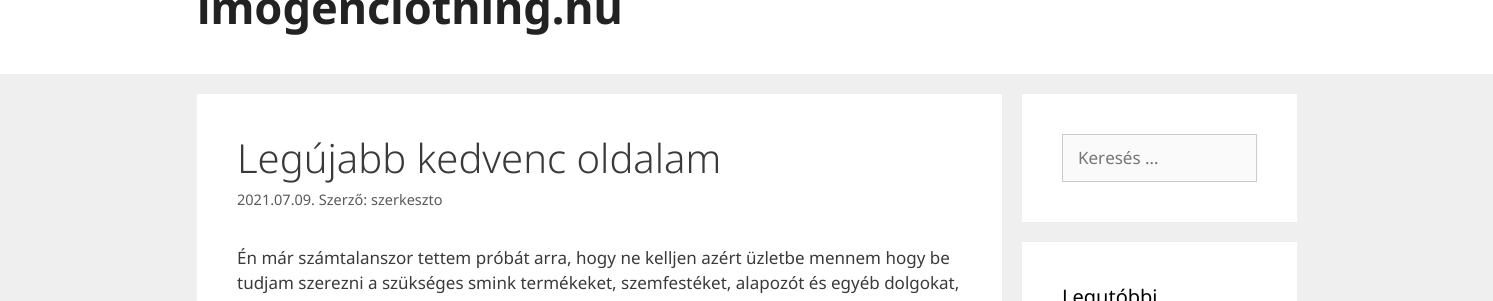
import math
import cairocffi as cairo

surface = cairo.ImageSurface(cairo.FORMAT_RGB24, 1493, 301)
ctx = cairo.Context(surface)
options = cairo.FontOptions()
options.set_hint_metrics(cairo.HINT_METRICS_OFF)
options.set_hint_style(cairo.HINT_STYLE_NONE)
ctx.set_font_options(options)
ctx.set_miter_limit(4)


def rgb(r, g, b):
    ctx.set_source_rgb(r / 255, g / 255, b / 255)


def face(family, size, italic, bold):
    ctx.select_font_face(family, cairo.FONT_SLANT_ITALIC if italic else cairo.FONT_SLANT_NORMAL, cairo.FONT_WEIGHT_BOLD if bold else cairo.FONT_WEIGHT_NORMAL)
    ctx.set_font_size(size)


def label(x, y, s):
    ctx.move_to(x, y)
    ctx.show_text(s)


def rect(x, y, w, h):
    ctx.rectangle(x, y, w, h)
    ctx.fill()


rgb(239, 239, 239)
ctx.paint()
rgb(255, 255, 255)
rect(0, 0, 1493, 74)
face('Noto Sans', 45, 0, 1)
rgb(34, 34, 34)
label(197, 24, 'imogenclothing.hu')
rgb(255, 255, 255)
rect(197, 94, 805, 207)
face('Noto Sans Light', 40, 0, 0)
rgb(58, 58, 58)
label(237, 173, 'Legújabb kedvenc oldalam')
face('Noto Sans', 14.5, 0, 0)
rgb(89, 89, 89)
label(237, 205, '2021.07.09. Szerző: szerkeszto')
face('Noto Sans', 17, 0, 0)
rgb(58, 58, 58)
label(237, 264, 'Én már számtalanszor tettem próbát arra, hogy ne kelljen azért üzletbe mennem hogy be')
label(237, 289, 'tudjam szerezni a szükséges smink termékeket, szemfestéket, alapozót és egyéb dolgokat,')
rgb(255, 255, 255)
rect(1022, 94, 275, 128)
rgb(250, 250, 250)
ctx.rectangle(1062.5, 134.5, 194, 47)
ctx.fill_preserve()
rgb(204, 204, 204)
ctx.set_line_width(1)
ctx.stroke()
rgb(117, 117, 117)
label(1078, 164, 'Keresés …')
rgb(255, 255, 255)
rect(1022, 242, 275, 59)
face('Noto Sans', 20, 0, 0)
rgb(0, 0, 0)
label(1062, 304, 'Legutóbbi')
surface.write_to_png('render.png')
